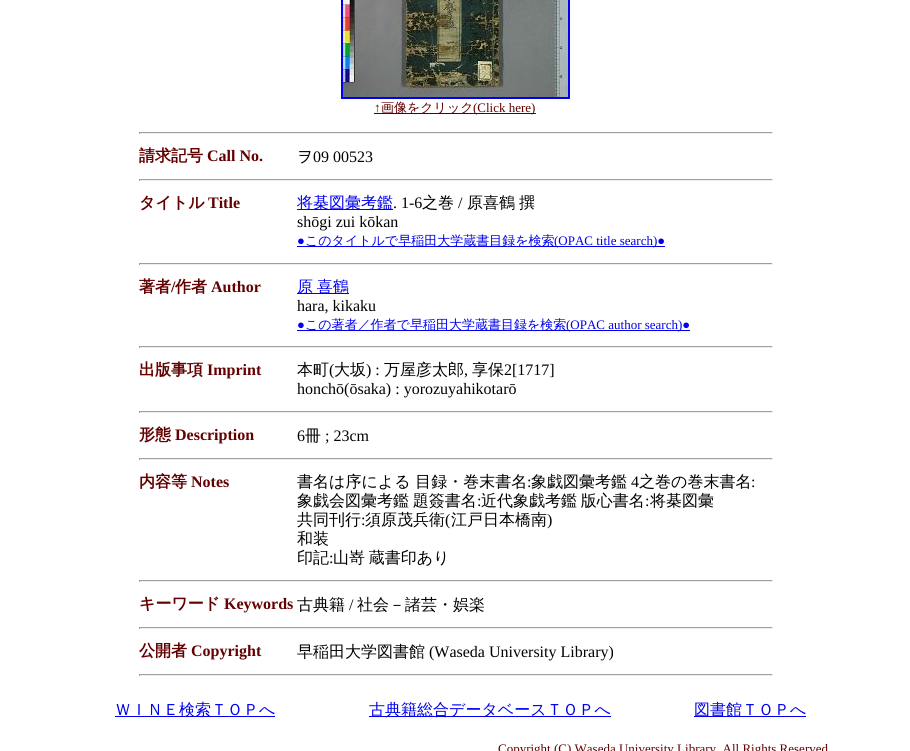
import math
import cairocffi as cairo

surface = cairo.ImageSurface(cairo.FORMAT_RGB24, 910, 751)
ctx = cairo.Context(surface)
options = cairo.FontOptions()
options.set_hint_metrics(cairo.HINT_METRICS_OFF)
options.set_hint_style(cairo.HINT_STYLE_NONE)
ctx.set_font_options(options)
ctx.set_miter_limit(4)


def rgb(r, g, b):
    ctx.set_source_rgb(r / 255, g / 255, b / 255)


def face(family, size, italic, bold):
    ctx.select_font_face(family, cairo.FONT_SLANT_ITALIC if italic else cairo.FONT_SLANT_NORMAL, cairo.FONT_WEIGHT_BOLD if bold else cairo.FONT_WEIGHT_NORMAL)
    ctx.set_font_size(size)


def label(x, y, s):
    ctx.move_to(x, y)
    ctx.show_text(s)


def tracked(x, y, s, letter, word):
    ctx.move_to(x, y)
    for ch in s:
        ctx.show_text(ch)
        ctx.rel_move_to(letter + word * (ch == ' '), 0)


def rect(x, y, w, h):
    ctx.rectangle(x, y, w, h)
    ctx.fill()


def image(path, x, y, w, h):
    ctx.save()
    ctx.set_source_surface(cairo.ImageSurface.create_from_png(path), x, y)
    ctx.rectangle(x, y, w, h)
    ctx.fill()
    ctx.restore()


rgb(255, 255, 255)
ctx.paint()
ctx.rectangle(342, -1, 227, 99)
rgb(0, 0, 238)
ctx.stroke()
image('image0.png', 343, 0, 225, 97)
face('Liberation Serif', 13, 0, 0)
rgb(99, 0, 0)
label(374, 112, '↑')
rgb(0, 0, 238)
rect(374, 113, 162, 1)
face('WenQuanYi Zen Hei Medium', 13, 0, 0)
rgb(99, 0, 0)
label(381, 112, '画像をクリック')
face('Liberation Serif', 13, 0, 0)
label(473, 112, '(Click here)')
rgb(159, 159, 159)
rect(139, 132, 634, 1)
rgb(238, 238, 238)
rect(772, 132, 1, 2)
rect(139, 133, 634, 1)
rgb(159, 159, 159)
rect(139, 132, 1, 2)
face('WenQuanYi Zen Hei', 16, 0, 1)
rgb(99, 0, 0)
label(139, 161, '請求記号')
face('Liberation Serif', 16, 0, 1)
label(207, 161, 'Call No.')
face('WenQuanYi Zen Hei Medium', 16, 0, 0)
rgb(0, 0, 0)
label(297, 162, 'ヲ')
face('Liberation Serif', 16, 0, 0)
label(313, 162, '09 00523')
rgb(159, 159, 159)
rect(139, 179, 634, 1)
rgb(238, 238, 238)
rect(772, 179, 1, 2)
rect(139, 180, 634, 1)
rgb(159, 159, 159)
rect(139, 179, 1, 2)
face('WenQuanYi Zen Hei', 16, 0, 1)
rgb(99, 0, 0)
label(139, 208, 'タイトル')
face('Liberation Serif', 16, 0, 1)
label(208, 208, 'Title')
rgb(0, 0, 238)
rect(297, 209, 96, 1)
face('WenQuanYi Zen Hei Medium', 16, 0, 0)
label(297, 208, '将棊図彙考鑑')
face('Liberation Serif', 16, 0, 0)
rgb(0, 0, 0)
label(393, 208, '. 1-6')
face('WenQuanYi Zen Hei Medium', 16, 0, 0)
label(422, 208, '之巻')
face('Liberation Serif', 16, 0, 0)
label(458, 208, '/')
face('WenQuanYi Zen Hei Medium', 16, 0, 0)
label(467, 208, '原喜鶴')
label(519, 208, '撰')
face('Liberation Serif', 16, 0, 0)
label(297, 227, 'shōgi zui kōkan')
face('Liberation Serif', 13, 0, 0)
rgb(0, 0, 238)
label(297, 245, '●')
rect(297, 246, 368, 1)
face('WenQuanYi Zen Hei Medium', 13, 0, 0)
label(305, 245, 'このタイトルで早稲田大学蔵書目録を検索')
face('Liberation Serif', 13, 0, 0)
label(554, 245, '(OPAC title search)●')
rgb(159, 159, 159)
rect(139, 263, 634, 1)
rgb(238, 238, 238)
rect(772, 263, 1, 2)
rect(139, 264, 634, 1)
rgb(159, 159, 159)
rect(139, 263, 1, 2)
face('WenQuanYi Zen Hei', 16, 0, 1)
rgb(99, 0, 0)
label(139, 292, '著者')
face('Liberation Serif', 16, 0, 1)
label(171, 292, '/')
face('WenQuanYi Zen Hei', 16, 0, 1)
label(175, 292, '作者')
face('Liberation Serif', 16, 0, 1)
label(211, 292, 'Author')
rgb(0, 0, 238)
rect(297, 293, 52, 1)
face('WenQuanYi Zen Hei Medium', 16, 0, 0)
tracked(297, 292, '原 喜鶴', 0, -1)
face('Liberation Serif', 16, 0, 0)
rgb(0, 0, 0)
label(297, 311, 'hara, kikaku')
face('Liberation Serif', 13, 0, 0)
rgb(0, 0, 238)
label(297, 329, '●')
rect(297, 330, 393, 1)
face('WenQuanYi Zen Hei Medium', 13, 0, 0)
label(305, 329, 'この著者／作者で早稲田大学蔵書目録を検索')
face('Liberation Serif', 13, 0, 0)
label(566, 329, '(OPAC author search)●')
rgb(159, 159, 159)
rect(139, 346, 634, 1)
rgb(238, 238, 238)
rect(772, 346, 1, 2)
rect(139, 347, 634, 1)
rgb(159, 159, 159)
rect(139, 346, 1, 2)
face('WenQuanYi Zen Hei', 16, 0, 1)
rgb(99, 0, 0)
label(139, 375, '出版事項')
face('Liberation Serif', 16, 0, 1)
label(207, 375, 'Imprint')
face('WenQuanYi Zen Hei Medium', 16, 0, 0)
rgb(0, 0, 0)
label(297, 375, '本町')
face('Liberation Serif', 16, 0, 0)
label(329, 375, '(')
face('WenQuanYi Zen Hei Medium', 16, 0, 0)
label(334, 375, '大坂')
face('Liberation Serif', 16, 0, 0)
label(366, 375, ') :')
face('WenQuanYi Zen Hei Medium', 16, 0, 0)
label(384, 375, '万屋彦太郎')
face('Liberation Serif', 16, 0, 0)
label(464, 375, ',')
face('WenQuanYi Zen Hei Medium', 16, 0, 0)
label(472, 375, '享保')
face('Liberation Serif', 16, 0, 0)
label(504, 375, '2[1717]')
label(297, 394, 'honchō(ōsaka) : yorozuyahikotarō')
rgb(159, 159, 159)
rect(139, 411, 634, 1)
rgb(238, 238, 238)
rect(772, 411, 1, 2)
rect(139, 412, 634, 1)
rgb(159, 159, 159)
rect(139, 411, 1, 2)
face('WenQuanYi Zen Hei', 16, 0, 1)
rgb(99, 0, 0)
label(139, 440, '形態')
face('Liberation Serif', 16, 0, 1)
label(175, 440, 'Description')
face('Liberation Serif', 16, 0, 0)
rgb(0, 0, 0)
label(297, 441, '6')
face('WenQuanYi Zen Hei Medium', 16, 0, 0)
label(305, 441, '冊')
face('Liberation Serif', 16, 0, 0)
label(325, 441, '; 23cm')
rgb(159, 159, 159)
rect(139, 458, 634, 1)
rgb(238, 238, 238)
rect(772, 458, 1, 2)
rect(139, 459, 634, 1)
rgb(159, 159, 159)
rect(139, 458, 1, 2)
face('WenQuanYi Zen Hei', 16, 0, 1)
rgb(99, 0, 0)
label(139, 487, '内容等')
face('Liberation Serif', 16, 0, 1)
label(191, 487, 'Notes')
face('WenQuanYi Zen Hei Medium', 16, 0, 0)
rgb(0, 0, 0)
label(297, 487, '書名は序による 目録・巻末書名')
face('Liberation Serif', 16, 0, 0)
label(527, 487, ':')
face('WenQuanYi Zen Hei Medium', 16, 0, 0)
label(531, 487, '象戯図彙考鑑')
face('Liberation Serif', 16, 0, 0)
label(631, 487, '4')
face('WenQuanYi Zen Hei Medium', 16, 0, 0)
label(639, 487, '之巻の巻末書名')
face('Liberation Serif', 16, 0, 0)
label(751, 487, ':')
face('WenQuanYi Zen Hei Medium', 16, 0, 0)
tracked(297, 506, '象戯会図彙考鑑 題簽書名', 0, -1)
face('Liberation Serif', 16, 0, 0)
label(477, 506, ':')
face('WenQuanYi Zen Hei Medium', 16, 0, 0)
tracked(481, 506, '近代象戯考鑑 版心書名', 0, -1)
face('Liberation Serif', 16, 0, 0)
label(645, 506, ':')
face('WenQuanYi Zen Hei Medium', 16, 0, 0)
label(650, 506, '将棊図彙')
label(297, 525, '共同刊行')
face('Liberation Serif', 16, 0, 0)
label(361, 525, ':')
face('WenQuanYi Zen Hei Medium', 16, 0, 0)
label(365, 525, '須原茂兵衛')
face('Liberation Serif', 16, 0, 0)
label(445, 525, '(')
face('WenQuanYi Zen Hei Medium', 16, 0, 0)
label(451, 525, '江戸日本橋南')
face('Liberation Serif', 16, 0, 0)
label(547, 525, ')')
face('WenQuanYi Zen Hei Medium', 16, 0, 0)
label(297, 544, '和装')
label(297, 563, '印記')
face('Liberation Serif', 16, 0, 0)
label(329, 563, ':')
face('WenQuanYi Zen Hei Medium', 16, 0, 0)
tracked(333, 563, '山嵜 蔵書印あり', 0, -1)
rgb(159, 159, 159)
rect(139, 580, 634, 1)
rgb(238, 238, 238)
rect(772, 580, 1, 2)
rect(139, 581, 634, 1)
rgb(159, 159, 159)
rect(139, 580, 1, 2)
face('WenQuanYi Zen Hei', 16, 0, 1)
rgb(99, 0, 0)
label(139, 609, 'キーワード')
face('Liberation Serif', 16, 0, 1)
label(224, 609, 'Keywords')
face('WenQuanYi Zen Hei Medium', 16, 0, 0)
rgb(0, 0, 0)
label(297, 610, '古典籍')
face('Liberation Serif', 16, 0, 0)
label(349, 610, '/')
face('WenQuanYi Zen Hei Medium', 16, 0, 0)
label(357, 610, '社会－諸芸・娯楽')
rgb(159, 159, 159)
rect(139, 627, 634, 1)
rgb(238, 238, 238)
rect(772, 627, 1, 2)
rect(139, 628, 634, 1)
rgb(159, 159, 159)
rect(139, 627, 1, 2)
face('WenQuanYi Zen Hei', 16, 0, 1)
rgb(99, 0, 0)
label(139, 656, '公開者')
face('Liberation Serif', 16, 0, 1)
label(191, 656, 'Copyright')
face('WenQuanYi Zen Hei Medium', 16, 0, 0)
rgb(0, 0, 0)
label(297, 657, '早稲田大学図書館')
face('Liberation Serif', 16, 0, 0)
label(429, 657, '(Waseda University Library)')
rgb(159, 159, 159)
rect(139, 674, 634, 1)
rgb(238, 238, 238)
rect(772, 674, 1, 2)
rect(139, 675, 634, 1)
rgb(159, 159, 159)
rect(139, 674, 1, 2)
rgb(0, 0, 238)
rect(115, 716, 160, 1)
face('WenQuanYi Zen Hei Medium', 16, 0, 0)
label(115, 715, 'ＷＩＮＥ検索ＴＯＰへ')
rect(369, 716, 242, 1)
label(369, 715, '古典籍総合データベースＴＯＰへ')
rect(694, 716, 112, 1)
label(694, 715, '図書館ＴＯＰへ')
face('Liberation Serif', 13, 0, 0)
rgb(99, 0, 0)
label(498, 753, 'Copyright (C) Waseda University Library, All Rights Reserved')
surface.write_to_png('render.png')
